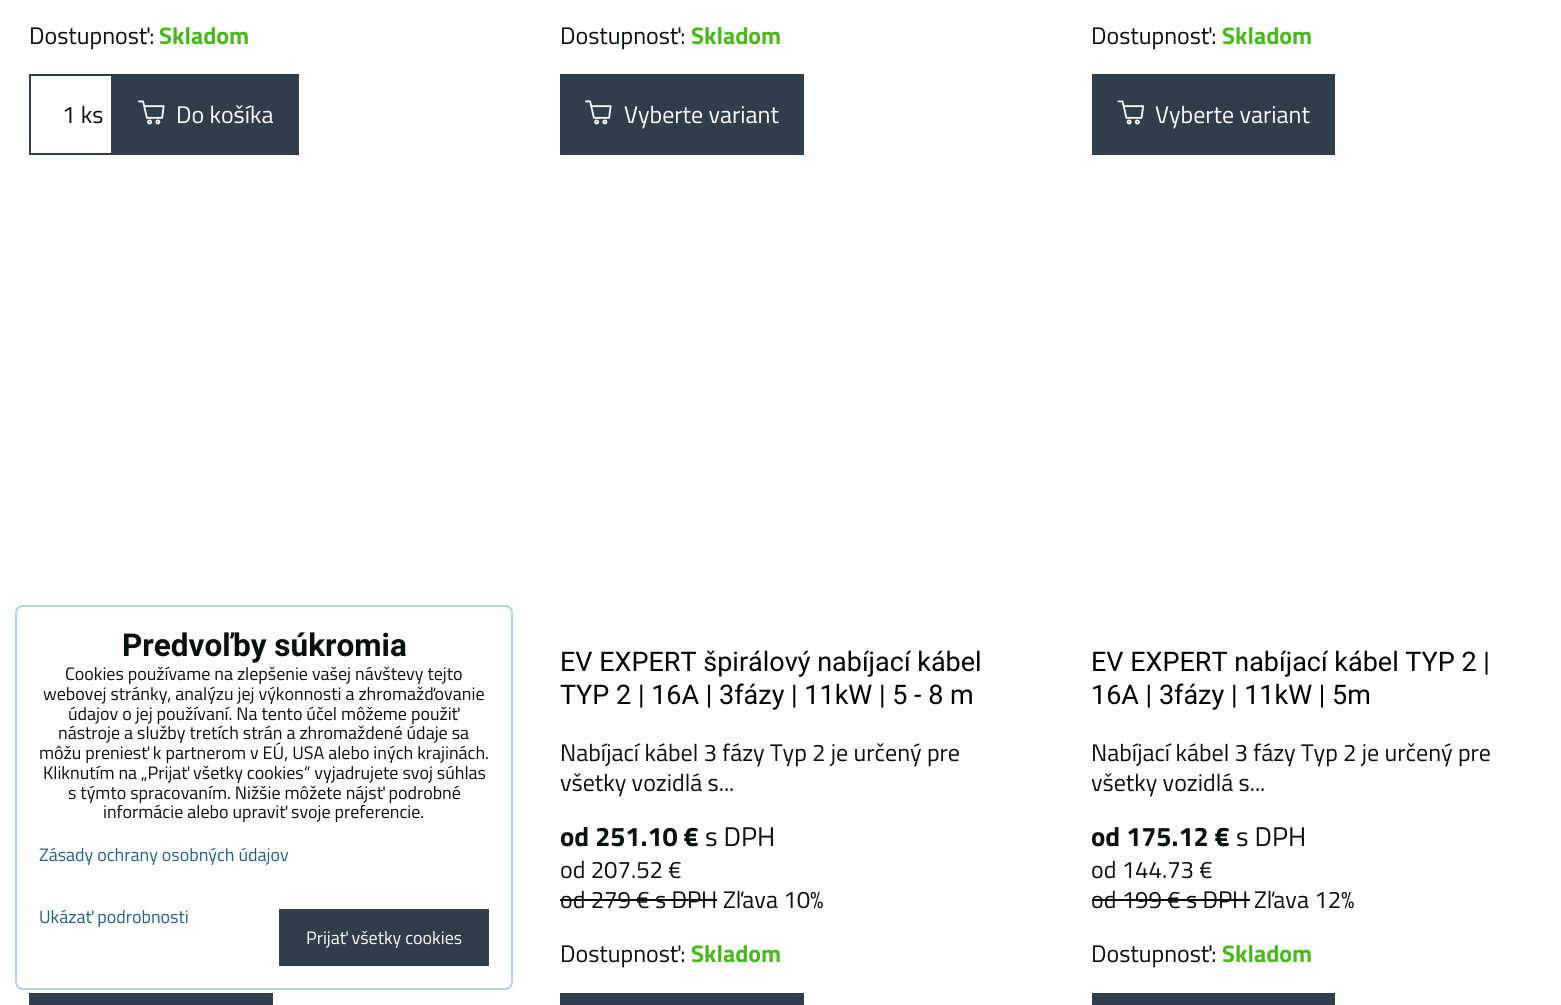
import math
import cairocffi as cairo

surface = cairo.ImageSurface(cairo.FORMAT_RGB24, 1561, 1005)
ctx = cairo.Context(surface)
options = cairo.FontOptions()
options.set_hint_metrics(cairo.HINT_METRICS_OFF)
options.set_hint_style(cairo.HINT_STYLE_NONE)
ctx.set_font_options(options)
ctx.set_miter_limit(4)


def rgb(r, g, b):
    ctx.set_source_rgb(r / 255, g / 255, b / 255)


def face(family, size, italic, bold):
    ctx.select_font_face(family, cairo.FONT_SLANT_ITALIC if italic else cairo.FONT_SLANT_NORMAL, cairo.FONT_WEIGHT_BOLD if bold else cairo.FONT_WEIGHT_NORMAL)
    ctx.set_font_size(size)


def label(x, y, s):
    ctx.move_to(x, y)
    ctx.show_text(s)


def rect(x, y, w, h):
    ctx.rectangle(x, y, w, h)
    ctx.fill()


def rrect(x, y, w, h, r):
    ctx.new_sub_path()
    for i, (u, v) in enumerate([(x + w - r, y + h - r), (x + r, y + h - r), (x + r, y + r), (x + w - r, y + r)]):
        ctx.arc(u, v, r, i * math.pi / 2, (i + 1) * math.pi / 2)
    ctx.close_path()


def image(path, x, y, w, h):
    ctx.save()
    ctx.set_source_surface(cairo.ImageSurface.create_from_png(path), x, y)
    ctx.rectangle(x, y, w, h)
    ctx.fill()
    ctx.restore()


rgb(255, 255, 255)
ctx.paint()
face('Titillium Web', 24, 0, 0)
rgb(8, 15, 13)
label(29, 44, 'Dostupnosť:')
face('Titillium Web', 24, 0, 1)
rgb(73, 184, 26)
label(159, 44, 'Skladom')
ctx.rectangle(30, 75, 82, 79)
rgb(47, 62, 74)
ctx.stroke()
face('Titillium Web', 24, 0, 0)
rgb(8, 15, 13)
label(62, 123, '1 ks')
rgb(47, 62, 74)
rect(113, 74, 186, 81)
image('image0.png', 138, 100, 27, 25)
rgb(255, 255, 255)
label(176, 123, 'Do košíka')
rgb(8, 15, 13)
label(560, 44, 'Dostupnosť:')
face('Titillium Web', 24, 0, 1)
rgb(73, 184, 26)
label(691, 44, 'Skladom')
rgb(47, 62, 74)
rect(560, 74, 244, 81)
image('image0.png', 585, 100, 27, 25)
face('Titillium Web', 24, 0, 0)
rgb(255, 255, 255)
label(624, 123, 'Vyberte variant')
rgb(8, 15, 13)
label(1091, 44, 'Dostupnosť:')
face('Titillium Web', 24, 0, 1)
rgb(73, 184, 26)
label(1222, 44, 'Skladom')
rgb(47, 62, 74)
rect(1092, 74, 243, 81)
image('image1.png', 1117, 100, 28, 25)
face('Titillium Web', 24, 0, 0)
rgb(255, 255, 255)
label(1155, 123, 'Vyberte variant')
face('Roboto', 27, 0, 0)
rgb(0, 0, 0)
label(560, 671, 'EV EXPERT špirálový nabíjací kábel')
label(560, 704, 'TYP 2 | 16A | 3fázy | 11kW | 5 - 8 m')
face('Titillium Web', 24, 0, 0)
rgb(8, 15, 13)
label(560, 761, 'Nabíjací kábel 3 fázy Typ 2 je určený pre')
label(560, 791, 'všetky vozidlá s...')
face('Titillium Web', 27, 0, 1)
label(560, 846, 'od 251.10 €')
face('Titillium Web', 27, 0, 0)
label(705, 846, 's DPH')
face('Titillium Web', 24, 0, 0)
label(560, 878, 'od 207.52 €')
label(560, 908, 'od 279 € s DPH')
rect(560, 899, 157, 2)
label(723, 908, 'Zľava 10%')
label(560, 962, 'Dostupnosť:')
face('Titillium Web', 24, 0, 1)
rgb(73, 184, 26)
label(691, 962, 'Skladom')
rgb(47, 62, 74)
rect(560, 993, 244, 12)
face('Roboto', 27, 0, 0)
rgb(0, 0, 0)
label(1091, 671, 'EV EXPERT nabíjací kábel TYP 2 |')
label(1091, 704, '16A | 3fázy | 11kW | 5m')
face('Titillium Web', 24, 0, 0)
rgb(8, 15, 13)
label(1091, 761, 'Nabíjací kábel 3 fázy Typ 2 je určený pre')
label(1091, 791, 'všetky vozidlá s...')
face('Titillium Web', 27, 0, 1)
label(1091, 846, 'od 175.12 €')
face('Titillium Web', 27, 0, 0)
label(1236, 846, 's DPH')
face('Titillium Web', 24, 0, 0)
label(1091, 878, 'od 144.73 €')
label(1091, 908, 'od 199 € s DPH')
rect(1092, 899, 158, 2)
label(1254, 908, 'Zľava 12%')
label(1091, 962, 'Dostupnosť:')
face('Titillium Web', 24, 0, 1)
rgb(73, 184, 26)
label(1222, 962, 'Skladom')
rgb(47, 62, 74)
rect(1092, 993, 243, 12)
rect(29, 993, 244, 12)
rrect(16, 606, 496, 383, 7)
rgb(179, 210, 224)
ctx.stroke()
face('Roboto', 31.5, 0, 1)
rgb(8, 15, 13)
label(122, 656, 'Predvoľby súkromia')
face('Titillium Web', 18, 0, 0)
label(65, 680, 'Cookies používame na zlepšenie vašej návštevy tejto')
label(43, 700, 'webovej stránky, analýzu jej výkonnosti a zhromažďovanie')
label(68, 720, 'údajov o jej používaní. Na tento účel môžeme použiť')
label(58, 739, 'nástroje a služby tretích strán a zhromaždené údaje sa')
label(39, 759, 'môžu preniesť k partnerom v EÚ, USA alebo iných krajinách.')
label(43, 779, 'Kliknutím na „Prijať všetky cookies“ vyjadrujete svoj súhlas')
label(68, 799, 's týmto spracovaním. Nižšie môžete nájsť podrobné')
label(103, 818, 'informácie alebo upraviť svoje preferencie.')
rgb(32, 96, 128)
label(39, 861, 'Zásady ochrany osobných údajov')
label(39, 923, 'Ukázať podrobnosti')
rgb(47, 62, 74)
rect(279, 909, 210, 57)
rgb(255, 255, 255)
label(306, 944, 'Prijať všetky cookies')
surface.write_to_png('render.png')
